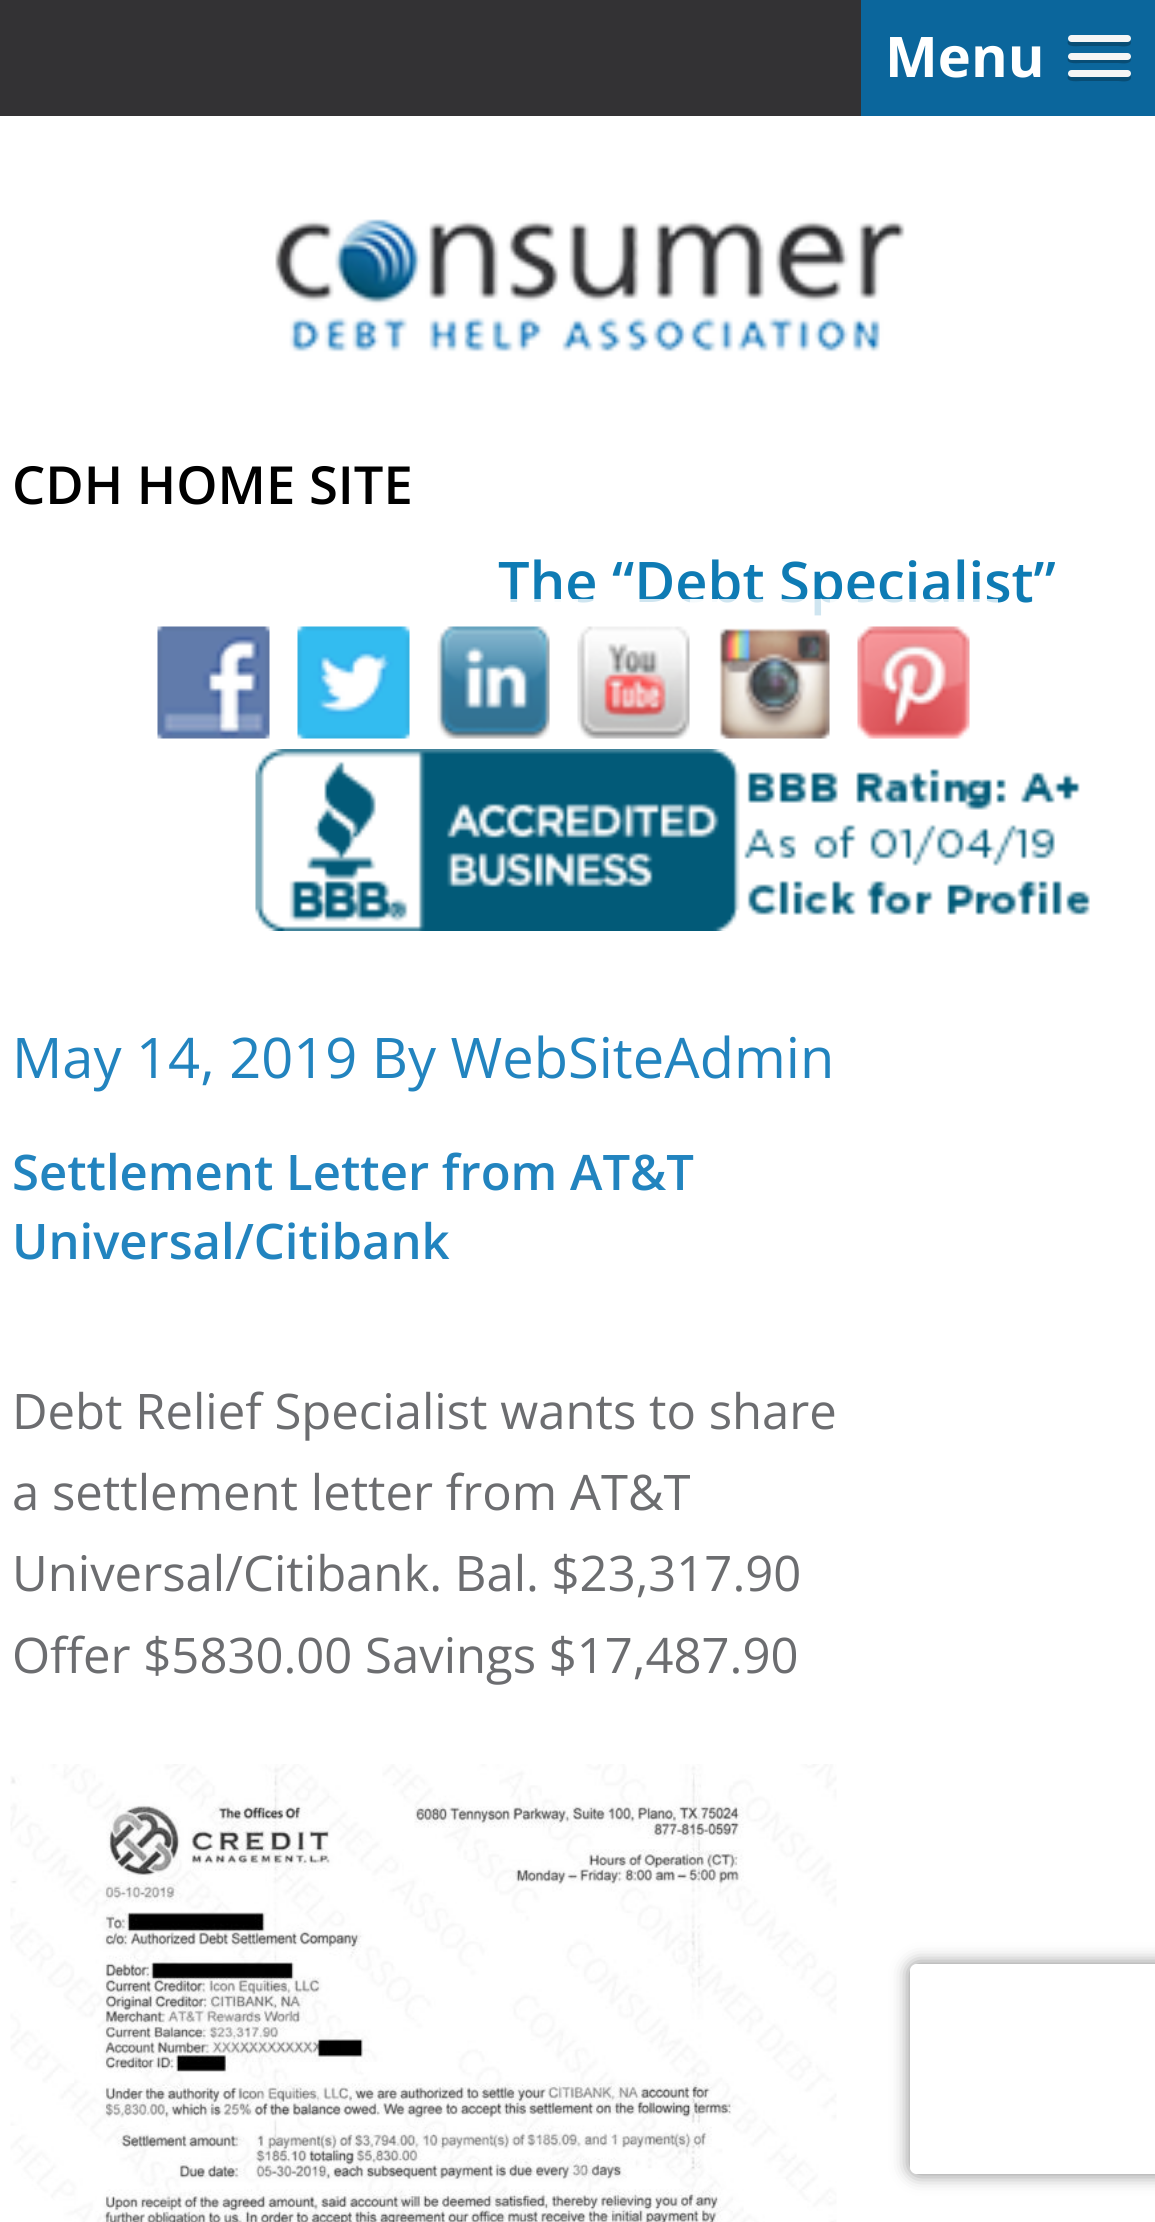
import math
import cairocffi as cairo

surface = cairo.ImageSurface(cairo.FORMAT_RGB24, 1155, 2222)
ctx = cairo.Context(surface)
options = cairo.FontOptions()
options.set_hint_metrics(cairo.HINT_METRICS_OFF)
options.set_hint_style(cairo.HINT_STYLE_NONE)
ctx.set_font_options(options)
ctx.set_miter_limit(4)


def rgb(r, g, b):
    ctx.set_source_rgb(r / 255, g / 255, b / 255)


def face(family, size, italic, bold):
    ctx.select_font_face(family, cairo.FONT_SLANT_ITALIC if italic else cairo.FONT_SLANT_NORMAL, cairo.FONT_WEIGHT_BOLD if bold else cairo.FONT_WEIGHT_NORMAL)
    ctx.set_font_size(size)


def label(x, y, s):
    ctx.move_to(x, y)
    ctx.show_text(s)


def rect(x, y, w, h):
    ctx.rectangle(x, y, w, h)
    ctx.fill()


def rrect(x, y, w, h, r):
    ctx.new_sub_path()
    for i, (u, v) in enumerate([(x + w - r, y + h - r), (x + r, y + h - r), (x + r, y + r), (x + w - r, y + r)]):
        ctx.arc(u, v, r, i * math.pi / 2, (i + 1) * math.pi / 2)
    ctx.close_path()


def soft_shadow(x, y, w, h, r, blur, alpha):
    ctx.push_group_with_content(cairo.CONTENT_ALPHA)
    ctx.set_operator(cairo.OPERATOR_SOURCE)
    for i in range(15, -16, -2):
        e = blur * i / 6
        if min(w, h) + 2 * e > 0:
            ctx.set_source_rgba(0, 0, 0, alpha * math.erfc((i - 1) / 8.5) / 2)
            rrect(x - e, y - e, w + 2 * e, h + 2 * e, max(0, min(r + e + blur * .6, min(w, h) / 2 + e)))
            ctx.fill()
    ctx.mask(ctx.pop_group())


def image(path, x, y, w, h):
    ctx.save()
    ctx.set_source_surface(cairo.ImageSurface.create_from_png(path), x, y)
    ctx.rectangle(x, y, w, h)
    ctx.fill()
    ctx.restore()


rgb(255, 255, 255)
ctx.paint()
rgb(51, 50, 52)
rect(0, 0, 861, 116)
rgb(11, 102, 156)
rect(861, 0, 294, 116)
face('Open Sans', 56, 0, 1)
rgb(255, 255, 255)
label(885, 77, 'Menu')
rgb(8, 77, 117)
ctx.new_path()
ctx.move_to(1068, 41)
ctx.curve_to(1065, 48, 1080, 46, 1081, 46)
ctx.line_to(1118, 46)
ctx.curve_to(1120, 46, 1130, 48, 1131, 43)
ctx.curve_to(1131, 42, 1131, 41, 1130, 40)
ctx.curve_to(1130, 41, 1129, 42, 1127, 42)
ctx.line_to(1071, 42)
ctx.close_path()
ctx.fill()
rgb(245, 245, 245)
rrect(1068, 35, 63, 7, 3.5)
ctx.fill()
rgb(8, 77, 117)
ctx.new_path()
ctx.move_to(1068, 58)
ctx.curve_to(1065, 65, 1080, 63, 1081, 63)
ctx.line_to(1118, 63)
ctx.curve_to(1120, 63, 1130, 65, 1131, 60)
ctx.line_to(1130, 57)
ctx.curve_to(1130, 58, 1129, 59, 1128, 59)
ctx.line_to(1071, 59)
ctx.close_path()
ctx.fill()
rgb(245, 245, 245)
rrect(1068, 53, 63, 7, 3.5)
ctx.fill()
rgb(8, 77, 117)
ctx.new_path()
ctx.move_to(1068, 76)
ctx.curve_to(1065, 83, 1080, 81, 1081, 81)
ctx.line_to(1118, 81)
ctx.curve_to(1120, 81, 1130, 83, 1131, 78)
ctx.curve_to(1131, 77, 1131, 76, 1130, 75)
ctx.curve_to(1130, 76, 1129, 77, 1127, 77)
ctx.line_to(1071, 77)
ctx.close_path()
ctx.fill()
rgb(245, 245, 245)
rrect(1068, 70, 63, 7, 3.5)
ctx.fill()
image('image0.png', 275, 219, 630, 133)
face('Open Sans SemiBold', 52.5, 0, 0)
rgb(0, 0, 0)
label(12, 504, 'CDH HOME SITE')
face('Open Sans SemiBold', 56, 0, 0)
rgb(14, 123, 180)
label(498, 602, 'The “Debt Specialist”')
image('image1.png', 157, 626, 113, 113)
image('image2.png', 297, 626, 113, 113)
ctx.rectangle(424, 613, 140, 140)
ctx.set_source_rgba(1, 1, 1, 0.8)
ctx.set_line_width(28)
ctx.stroke()
ctx.rectangle(564, 613, 140, 140)
ctx.stroke()
ctx.rectangle(704, 613, 140, 140)
ctx.stroke()
ctx.rectangle(844, 613, 140, 140)
ctx.stroke()
image('image3.png', 437, 626, 113, 113)
image('image4.png', 577, 626, 113, 113)
image('image5.png', 719, 628, 111, 111)
image('image6.png', 857, 626, 113, 113)
image('image7.png', 255, 749, 835, 182)
face('Open Sans', 56, 0, 0)
rgb(34, 132, 191)
label(12, 1078, 'May 14, 2019 By WebSiteAdmin')
face('Open Sans SemiBold', 49, 0, 0)
label(12, 1190, 'Settlement Letter from AT&T')
label(12, 1259, 'Universal/Citibank')
face('Open Sans', 49, 0, 0)
rgb(108, 109, 112)
label(12, 1429, 'Debt Relief Specialist wants to share')
label(12, 1510, 'a settlement letter from AT&T')
label(12, 1591, 'Universal/Citibank. Bal. $23,317.90')
label(12, 1673, 'Offer $5830.00 Savings $17,487.90')
image('image8.png', 10, 1764, 827, 458)
ctx.save()
ctx.set_fill_rule(cairo.FILL_RULE_EVEN_ODD)
ctx.new_path()
ctx.move_to(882, 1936)
ctx.line_to(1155, 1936)
ctx.line_to(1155, 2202)
ctx.line_to(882, 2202)
ctx.close_path()
ctx.move_to(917, 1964)
ctx.line_to(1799, 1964)
ctx.curve_to(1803, 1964, 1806, 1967, 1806, 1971)
ctx.line_to(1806, 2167)
ctx.curve_to(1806, 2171, 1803, 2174, 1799, 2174)
ctx.line_to(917, 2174)
ctx.curve_to(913, 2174, 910, 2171, 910, 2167)
ctx.line_to(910, 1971)
ctx.curve_to(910, 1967, 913, 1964, 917, 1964)
ctx.close_path()
ctx.clip()
rgb(128, 128, 128)
soft_shadow(910, 1964, 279, 210, 7, 9, 1)
ctx.restore()
surface.write_to_png('render.png')
